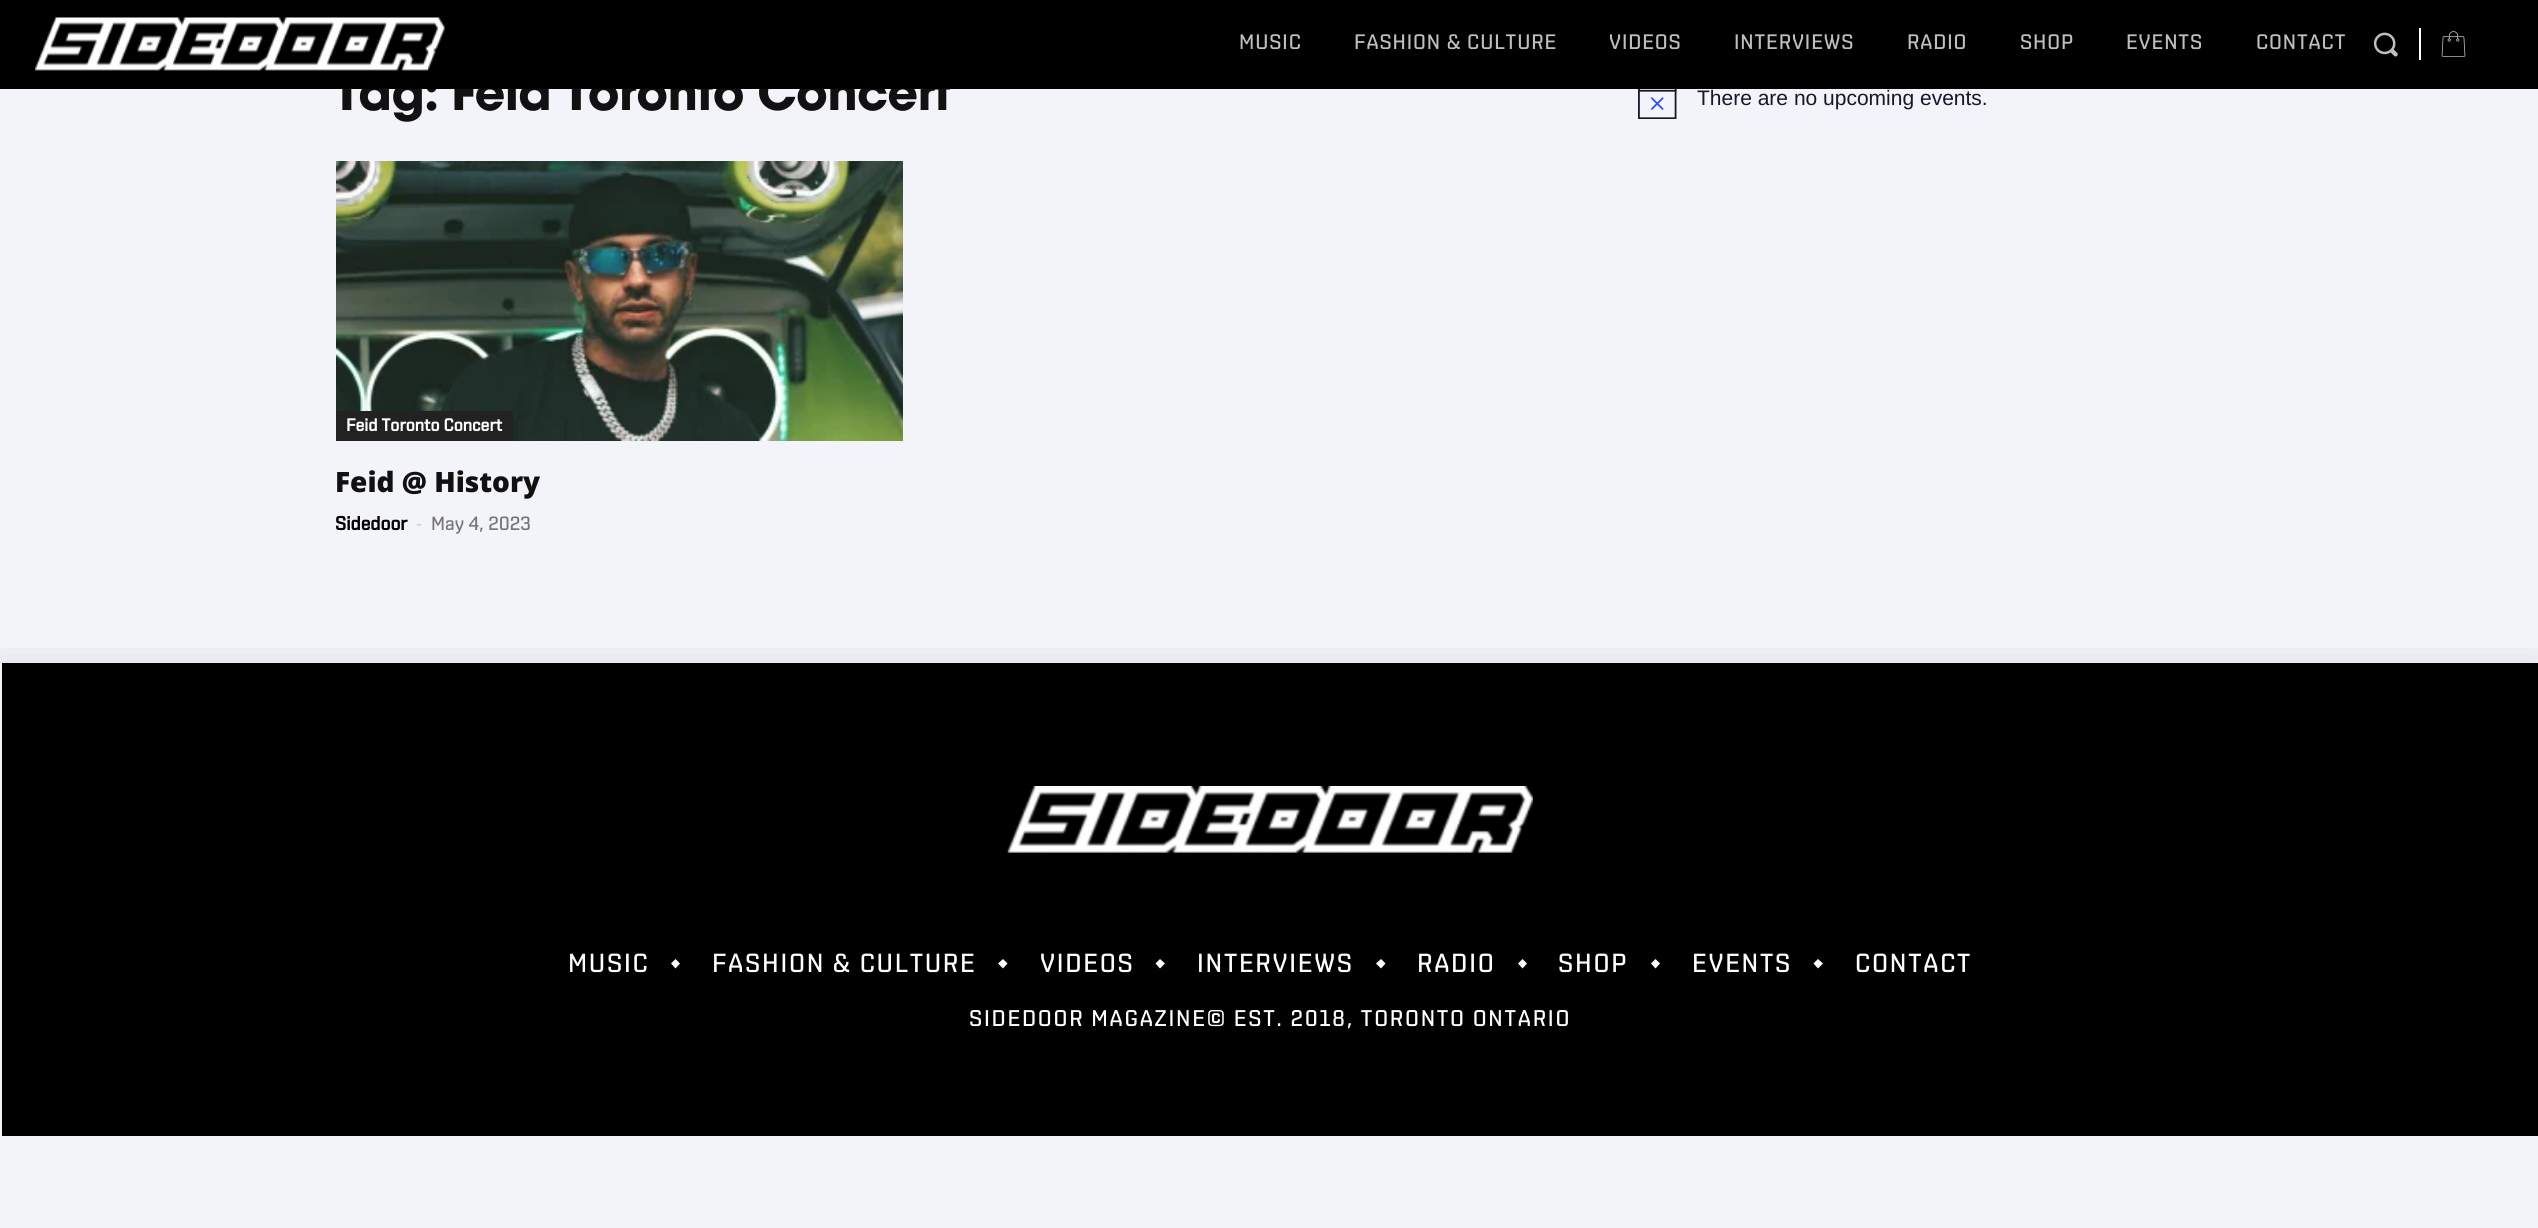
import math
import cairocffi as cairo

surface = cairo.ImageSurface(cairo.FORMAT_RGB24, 2538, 1228)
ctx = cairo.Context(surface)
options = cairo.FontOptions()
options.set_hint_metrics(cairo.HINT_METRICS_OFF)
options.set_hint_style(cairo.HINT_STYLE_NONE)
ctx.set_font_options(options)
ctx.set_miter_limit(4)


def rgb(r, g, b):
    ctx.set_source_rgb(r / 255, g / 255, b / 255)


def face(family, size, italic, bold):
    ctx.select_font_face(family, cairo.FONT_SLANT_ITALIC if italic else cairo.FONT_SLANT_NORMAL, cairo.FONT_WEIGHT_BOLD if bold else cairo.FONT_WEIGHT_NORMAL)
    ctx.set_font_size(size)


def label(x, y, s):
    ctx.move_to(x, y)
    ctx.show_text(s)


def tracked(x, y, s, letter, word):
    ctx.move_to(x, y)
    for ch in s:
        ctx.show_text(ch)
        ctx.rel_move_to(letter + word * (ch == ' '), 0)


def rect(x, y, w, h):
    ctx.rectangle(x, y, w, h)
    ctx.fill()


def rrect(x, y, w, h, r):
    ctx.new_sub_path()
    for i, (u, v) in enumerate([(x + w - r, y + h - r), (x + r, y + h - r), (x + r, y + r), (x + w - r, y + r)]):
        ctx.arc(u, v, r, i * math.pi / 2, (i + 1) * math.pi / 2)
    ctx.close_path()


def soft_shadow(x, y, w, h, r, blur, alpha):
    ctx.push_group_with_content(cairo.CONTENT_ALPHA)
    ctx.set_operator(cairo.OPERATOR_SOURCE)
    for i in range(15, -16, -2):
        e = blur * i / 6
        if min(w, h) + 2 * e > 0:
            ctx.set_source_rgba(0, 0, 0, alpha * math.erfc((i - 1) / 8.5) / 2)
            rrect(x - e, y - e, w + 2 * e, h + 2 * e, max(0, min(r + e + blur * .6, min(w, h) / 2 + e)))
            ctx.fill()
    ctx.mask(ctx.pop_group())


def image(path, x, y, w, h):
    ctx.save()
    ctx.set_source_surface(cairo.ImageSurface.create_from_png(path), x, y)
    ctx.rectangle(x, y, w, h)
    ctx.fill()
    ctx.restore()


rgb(243, 244, 249)
ctx.paint()
face('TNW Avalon', 52.5, 0, 1)
rgb(17, 17, 17)
label(335, 110, 'Tag: Feid Toronto Concert')
rgb(0, 0, 0)
rect(0, 0, 2538, 89)
image('image0.png', 35, 17, 410, 54)
face('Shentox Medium', 21, 0, 0)
rgb(191, 191, 191)
tracked(1239, 49, 'MUSIC', 0.9, 0)
tracked(1354, 49, 'FASHION & CULTURE', 0.9, 0)
tracked(1609, 49, 'VIDEOS', 0.9, 0)
tracked(1734, 49, 'INTERVIEWS', 0.9, 0)
tracked(1907, 49, 'RADIO', 0.9, 0)
tracked(2020, 49, 'SHOP', 0.9, 0)
tracked(2126, 49, 'EVENTS', 0.9, 0)
tracked(2256, 49, 'CONTACT', 0.9, 0)
image('image1.png', 2373, 32, 25, 25)
rgb(255, 255, 255)
rect(2419, 28, 2, 32)
image('image2.png', 2441, 31, 25, 26)
image('image3.png', 336, 161, 567, 280)
rgb(34, 34, 34)
rect(336, 411, 177, 30)
face('Shentox', 17.5, 0, 1)
rgb(255, 255, 255)
label(346, 431, 'Feid Toronto Concert')
face('Open Sans ExtraBold', 28, 0, 0)
rgb(17, 17, 17)
label(335, 492, 'Feid @ History')
face('Shentox', 19.25, 0, 1)
rgb(0, 0, 0)
label(335, 530, 'Sidedoor')
face('Open Sans', 19.25, 0, 0)
rgb(204, 204, 204)
label(416, 530, '-')
face('Shentox Medium', 19.25, 0, 0)
rgb(118, 118, 118)
label(431, 530, 'May 4, 2023')
image('image4.png', 1638, 89, 39, 30)
face('Liberation Sans', 21, 0, 0)
rgb(20, 24, 39)
label(1697, 105, 'There are no upcoming events.')
ctx.save()
ctx.rectangle(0, 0, 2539, 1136)
ctx.clip()
ctx.rectangle(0, 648, 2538, 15)
ctx.clip()
rgb(0, 0, 0)
soft_shadow(0, 663, 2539, 473, 0, 17.5, 0.1)
ctx.restore()
rgb(0, 0, 0)
rect(2, 663, 2536, 473)
image('image5.png', 1007, 786, 526, 67)
face('Shentox Medium', 26.25, 0, 0)
rgb(255, 255, 255)
tracked(568, 972, 'MUSIC', 1.75, 0)
ctx.new_path()
ctx.move_to(680, 963.5)
ctx.line_to(675.5, 968.5)
ctx.line_to(671, 963.5)
ctx.line_to(675.5, 959)
ctx.close_path()
ctx.fill()
tracked(712, 972, 'FASHION & CULTURE', 1.75, 0)
ctx.new_path()
ctx.move_to(1007.5, 963.5)
ctx.line_to(1003, 968.5)
ctx.line_to(998, 963.5)
ctx.line_to(1003, 959)
ctx.close_path()
ctx.fill()
tracked(1040, 972, 'VIDEOS', 1.75, 0)
ctx.new_path()
ctx.move_to(1165, 963.5)
ctx.line_to(1160, 968.5)
ctx.line_to(1155.5, 963.5)
ctx.line_to(1160, 959)
ctx.close_path()
ctx.fill()
tracked(1197, 972, 'INTERVIEWS', 1.75, 0)
ctx.new_path()
ctx.move_to(1385.5, 963.5)
ctx.line_to(1381, 968.5)
ctx.line_to(1376, 963.5)
ctx.line_to(1381, 959)
ctx.close_path()
ctx.fill()
tracked(1417, 972, 'RADIO', 1.75, 0)
ctx.new_path()
ctx.move_to(1527, 963.5)
ctx.line_to(1522.5, 968.5)
ctx.line_to(1518, 963.5)
ctx.line_to(1522.5, 959)
ctx.close_path()
ctx.fill()
tracked(1558, 972, 'SHOP', 1.75, 0)
ctx.new_path()
ctx.move_to(1660, 963.5)
ctx.line_to(1655.5, 968.5)
ctx.line_to(1651, 963.5)
ctx.line_to(1655.5, 959)
ctx.close_path()
ctx.fill()
tracked(1692, 972, 'EVENTS', 1.75, 0)
ctx.new_path()
ctx.move_to(1823, 963.5)
ctx.line_to(1818, 968.5)
ctx.line_to(1813.5, 963.5)
ctx.line_to(1818, 959)
ctx.close_path()
ctx.fill()
tracked(1855, 972, 'CONTACT', 1.75, 0)
face('Shentox Medium', 22.75, 0, 0)
tracked(969, 1026, 'SIDEDOOR MAGAZINE© EST. 2018, TORONTO ONTARIO', 1.75, 0)
surface.write_to_png('render.png')
